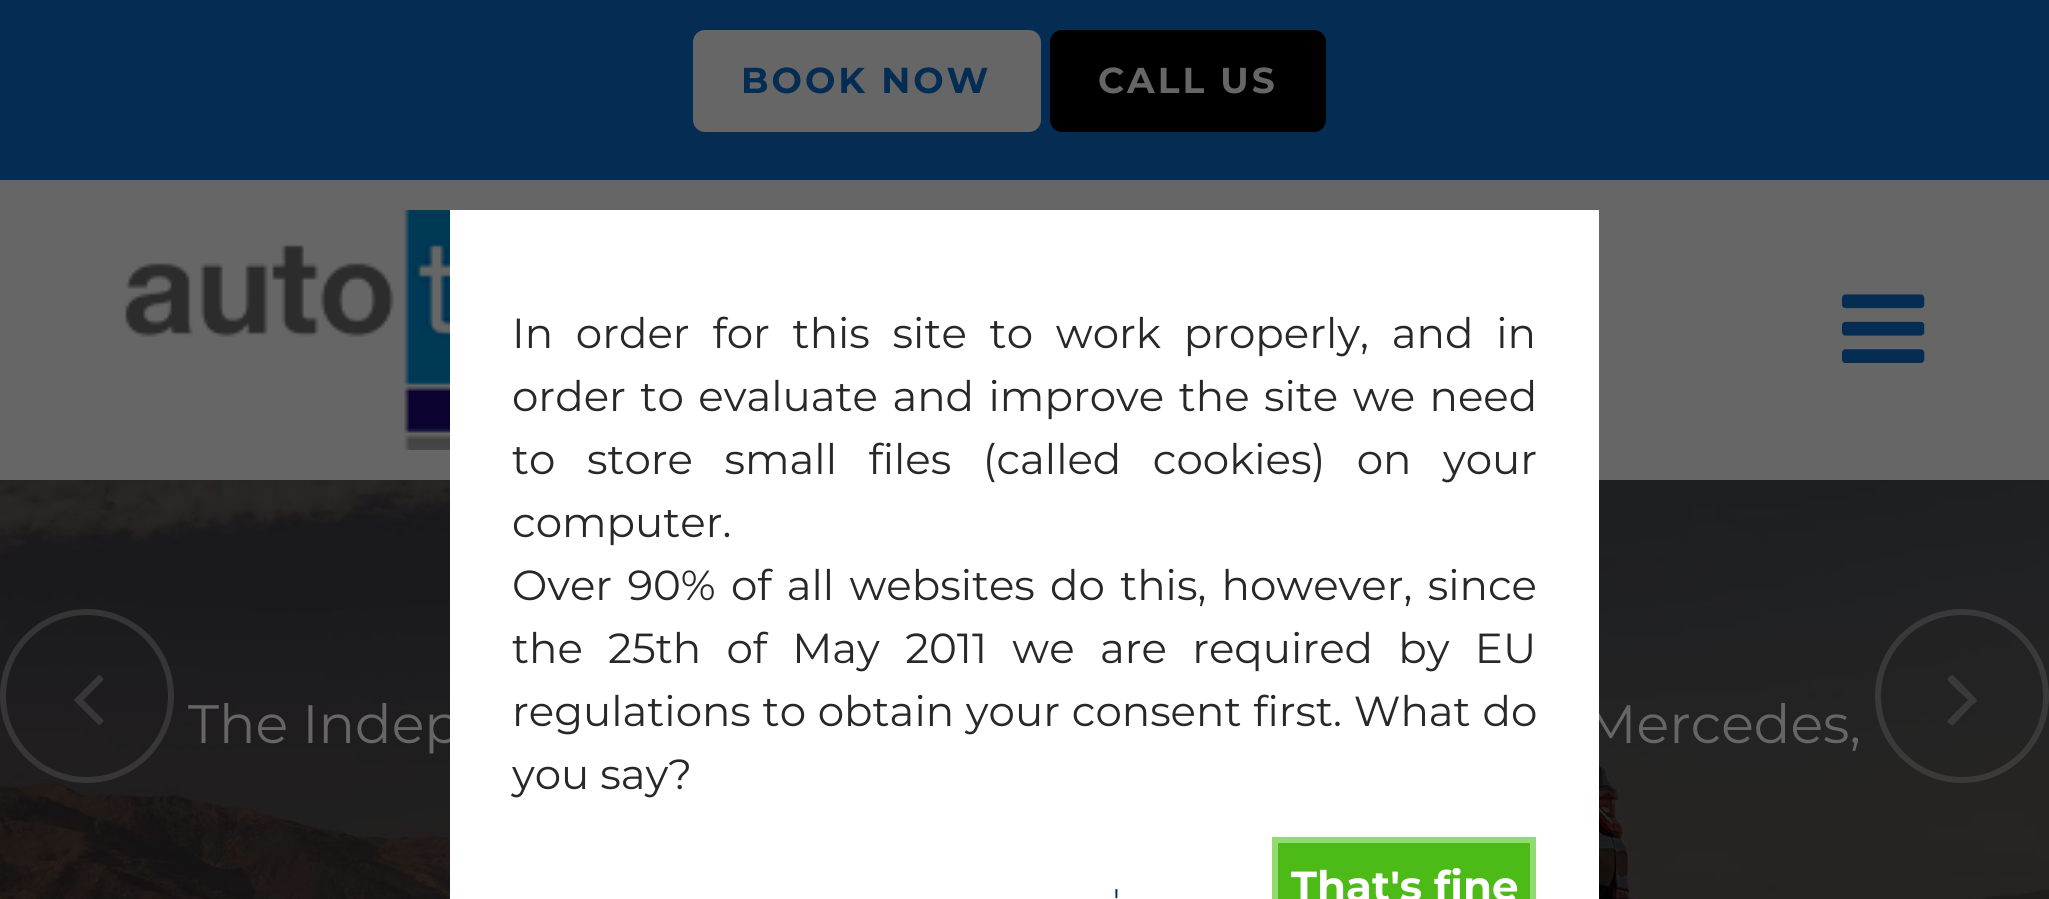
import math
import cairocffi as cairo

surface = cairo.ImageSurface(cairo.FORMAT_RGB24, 2049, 899)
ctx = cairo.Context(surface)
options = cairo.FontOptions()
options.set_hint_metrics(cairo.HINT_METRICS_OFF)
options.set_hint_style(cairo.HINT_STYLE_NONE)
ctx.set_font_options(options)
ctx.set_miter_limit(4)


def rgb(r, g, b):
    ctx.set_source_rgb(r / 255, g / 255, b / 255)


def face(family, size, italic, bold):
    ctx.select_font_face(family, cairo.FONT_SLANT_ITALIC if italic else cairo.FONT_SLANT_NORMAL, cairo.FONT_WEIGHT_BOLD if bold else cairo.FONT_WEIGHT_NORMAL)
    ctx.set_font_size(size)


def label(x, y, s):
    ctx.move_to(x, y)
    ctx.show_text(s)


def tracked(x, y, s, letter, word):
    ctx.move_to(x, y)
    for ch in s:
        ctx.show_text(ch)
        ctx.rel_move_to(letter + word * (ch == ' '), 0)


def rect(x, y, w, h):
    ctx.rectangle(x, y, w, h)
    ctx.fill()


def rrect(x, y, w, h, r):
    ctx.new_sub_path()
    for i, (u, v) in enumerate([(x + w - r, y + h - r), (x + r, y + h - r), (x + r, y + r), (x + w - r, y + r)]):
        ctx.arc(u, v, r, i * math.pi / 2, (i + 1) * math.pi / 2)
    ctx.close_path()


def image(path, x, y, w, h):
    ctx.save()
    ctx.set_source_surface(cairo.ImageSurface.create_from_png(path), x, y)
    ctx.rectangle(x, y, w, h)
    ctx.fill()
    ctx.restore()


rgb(255, 255, 255)
ctx.paint()
rgb(5, 44, 82)
rect(0, 0, 2049, 180)
rgb(102, 102, 102)
rrect(696, 33, 342, 96, 9)
ctx.fill_preserve()
ctx.set_line_width(6)
ctx.stroke()
face('Montserrat', 36, 0, 1)
rgb(5, 44, 82)
tracked(741, 93, 'BOOK NOW', 3, 0)
rgb(0, 0, 0)
rrect(1053, 33, 270, 96, 9)
ctx.fill_preserve()
ctx.stroke()
rgb(102, 102, 102)
tracked(1098, 93, 'CALL US', 3, 0)
rect(0, 180, 2049, 300)
image('image0.png', 125, 210, 325, 240)
image('image1.png', 1842, 294, 83, 69)
image('image3.png', 0, 480, 2049, 419)
ctx.arc(87, 696, 84, 0, 2 * math.pi)
ctx.set_source_rgba(0.4, 0.4, 0.4, 0.35)
ctx.stroke()
image('image2.png', 74, 675, 30, 51)
face('Montserrat', 54, 0, 0)
rgb(102, 102, 102)
label(188, 743, 'The Indep')
label(1585, 743, 'Mercedes,')
ctx.new_path()
ctx.arc(1962, 696, 84, 0, 2 * math.pi)
ctx.set_source_rgba(0.4, 0.4, 0.4, 0.35)
ctx.stroke()
rgb(58, 58, 58)
ctx.new_path()
ctx.move_to(1976, 699)
ctx.curve_to(1979, 701, 1973, 705, 1972, 705)
ctx.line_to(1957, 721)
ctx.curve_to(1957, 721, 1953, 727, 1951, 725)
ctx.curve_to(1950, 724, 1946, 722, 1948, 720)
ctx.line_to(1968, 700)
ctx.line_to(1951, 684)
ctx.curve_to(1948, 680, 1946, 680, 1949, 677)
ctx.curve_to(1953, 673, 1953, 676, 1957, 679)
ctx.close_path()
ctx.fill()
rgb(255, 255, 255)
rect(450, 210, 1149, 689)
face('Montserrat', 42, 0, 0)
rgb(40, 40, 40)
tracked(512, 348, 'In order for this site to work properly, and in', 0, 11.75)
tracked(512, 411, 'order to evaluate and improve the site we need', 0, 3.5)
tracked(512, 474, 'to store small files (called cookies) on your', 0, 20.5)
label(512, 537, 'computer.')
tracked(512, 600, 'Over 90% of all websites do this, however, since', 0, 4.25)
tracked(512, 663, 'the 25th of May 2011 we are required by EU', 0, 14.25)
tracked(512, 726, 'regulations to obtain your consent first. What do', 0, 0.75)
label(512, 789, 'you say?')
face('Montserrat', 34, 0, 0)
rgb(10, 35, 127)
label(1113, 913, '\'')
rgb(76, 187, 23)
ctx.rectangle(1275, 840, 258, 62)
ctx.fill_preserve()
rgb(147, 219, 112)
ctx.stroke()
face('Montserrat', 42, 0, 1)
rgb(255, 255, 255)
label(1291, 901, 'That\'s fine')
surface.write_to_png('render.png')
